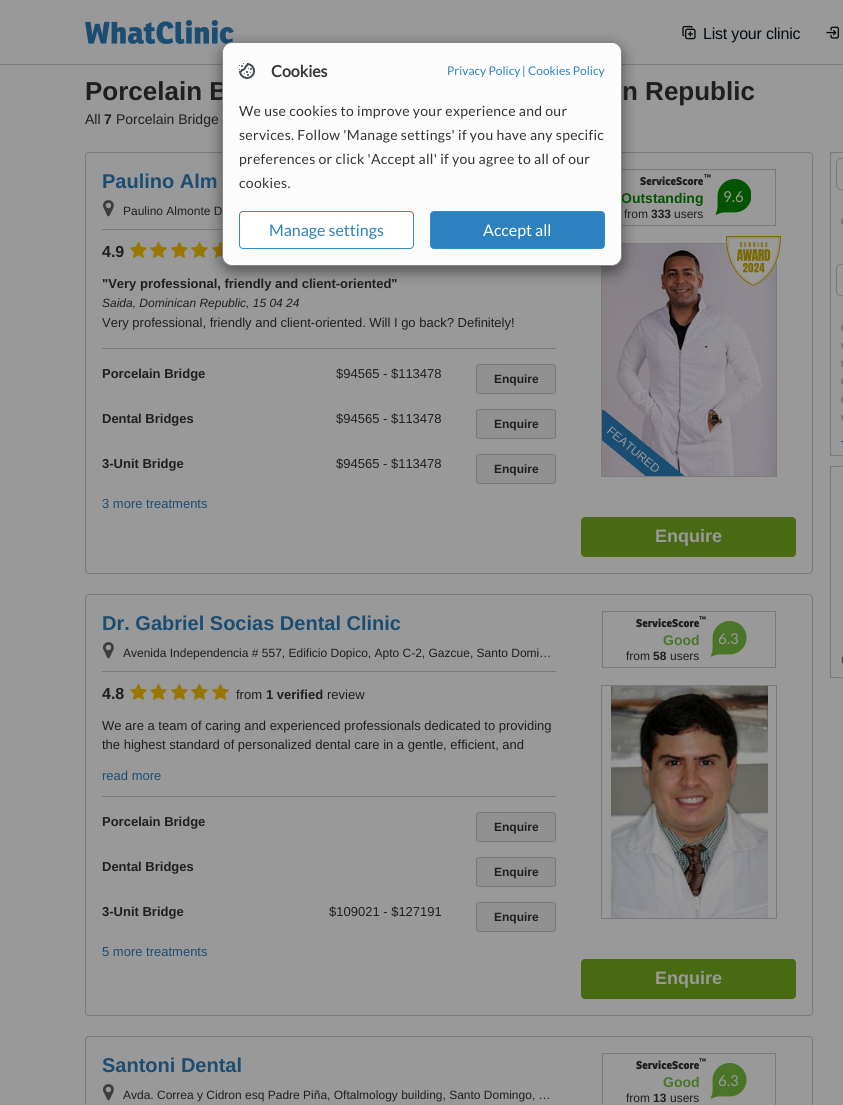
import math
import cairocffi as cairo

surface = cairo.ImageSurface(cairo.FORMAT_RGB24, 843, 1105)
ctx = cairo.Context(surface)
options = cairo.FontOptions()
options.set_hint_metrics(cairo.HINT_METRICS_OFF)
options.set_hint_style(cairo.HINT_STYLE_NONE)
ctx.set_font_options(options)
ctx.set_miter_limit(4)


def rgb(r, g, b):
    ctx.set_source_rgb(r / 255, g / 255, b / 255)


def face(family, size, italic, bold):
    ctx.select_font_face(family, cairo.FONT_SLANT_ITALIC if italic else cairo.FONT_SLANT_NORMAL, cairo.FONT_WEIGHT_BOLD if bold else cairo.FONT_WEIGHT_NORMAL)
    ctx.set_font_size(size)


def label(x, y, s):
    ctx.move_to(x, y)
    ctx.show_text(s)


def tracked(x, y, s, letter, word):
    ctx.move_to(x, y)
    for ch in s:
        ctx.show_text(ch)
        ctx.rel_move_to(letter + word * (ch == ' '), 0)


def rect(x, y, w, h):
    ctx.rectangle(x, y, w, h)
    ctx.fill()


def rrect(x, y, w, h, r):
    ctx.new_sub_path()
    for i, (u, v) in enumerate([(x + w - r, y + h - r), (x + r, y + h - r), (x + r, y + r), (x + w - r, y + r)]):
        ctx.arc(u, v, r, i * math.pi / 2, (i + 1) * math.pi / 2)
    ctx.close_path()


def soft_shadow(x, y, w, h, r, blur, alpha):
    ctx.push_group_with_content(cairo.CONTENT_ALPHA)
    ctx.set_operator(cairo.OPERATOR_SOURCE)
    for i in range(15, -16, -2):
        e = blur * i / 6
        if min(w, h) + 2 * e > 0:
            ctx.set_source_rgba(0, 0, 0, alpha * math.erfc((i - 1) / 8.5) / 2)
            rrect(x - e, y - e, w + 2 * e, h + 2 * e, max(0, min(r + e + blur * .6, min(w, h) / 2 + e)))
            ctx.fill()
    ctx.mask(ctx.pop_group())


def image(path, x, y, w, h):
    ctx.save()
    ctx.set_source_surface(cairo.ImageSurface.create_from_png(path), x, y)
    ctx.rectangle(x, y, w, h)
    ctx.fill()
    ctx.restore()


rgb(153, 153, 153)
ctx.paint()
rgb(123, 125, 126)
rect(0, 64, 843, 1)
image('image0.png', 85, 20, 149, 24)
image('image1.png', 682, 25, 14, 15)
face('Liberation Sans', 16, 0, 0)
rgb(4, 12, 17)
tracked(703, 39, 'List your clinic', -0.2, 0)
image('image2.png', 826, 26, 13, 13)
rrect(85.5, 152.5, 727, 421, 3.5)
rgb(122, 122, 122)
ctx.set_line_width(1)
ctx.stroke()
rect(102, 229, 120, 1)
ctx.rectangle(602.5, 169.5, 173, 56)
ctx.stroke()
ctx.rectangle(601.5, 243.5, 175, 233)
ctx.stroke()
image('image7.png', 602, 244, 174, 232)
image('image9.png', 191, 241, 17, 17)
image('image10.png', 212, 241, 12, 17)
rgb(0, 0, 0)
soft_shadow(222, 47, 400, 224, 10, 7.5, 0.5)
face('Liberation Sans', 26, 0, 1)
rgb(31, 31, 31)
label(85, 100, 'Porcelain B')
face('Liberation Sans', 14, 0, 1)
rgb(4, 83, 0)
label(621, 203, 'Outstanding')
rgb(252, 252, 252)
rrect(222.5, 42.5, 399, 223, 9.5)
ctx.fill_preserve()
rgb(136, 136, 136)
ctx.stroke()
image('image3.png', 239, 63, 16, 16)
face('Lato', 16, 0, 1)
rgb(51, 51, 51)
label(271, 77, 'Cookies')
face('Lato', 12, 0, 0)
rgb(45, 129, 190)
label(447, 75, 'Privacy Policy')
label(522, 75, '|')
label(528, 75, 'Cookies Policy')
face('Lato', 14, 0, 0)
rgb(51, 51, 51)
tracked(239, 116, 'We use cookies to improve your experience and our', 0.28, 0)
tracked(239, 140, 'services. Follow \'Manage settings\' if you have any specific', 0.28, 0)
tracked(239, 164, 'preferences or click \'Accept all\' if you agree to all of our', 0.28, 0)
tracked(239, 188, 'cookies.', 0.28, 0)
rgb(255, 255, 255)
rrect(239.5, 211.5, 174, 37, 3.5)
ctx.fill_preserve()
rgb(52, 141, 206)
ctx.stroke()
face('Lato', 16, 0, 0)
rgb(45, 129, 190)
label(269, 236, 'Manage settings')
rrect(430.5, 211.5, 174, 37, 3.5)
ctx.fill_preserve()
rgb(52, 141, 206)
ctx.stroke()
rgb(255, 255, 255)
label(483, 236, 'Accept all')
face('Liberation Sans', 26, 0, 1)
rgb(31, 31, 31)
label(622, 100, 'n Republic')
face('Liberation Sans', 14, 0, 0)
label(85, 124, 'All')
face('Liberation Sans', 14, 0, 1)
label(104, 124, '7')
face('Liberation Sans', 14, 0, 0)
label(116, 124, 'Porcelain Bridge')
face('Liberation Sans', 20, 0, 1)
rgb(27, 77, 114)
label(102, 188, 'Paulino Alm')
image('image4.png', 103, 200, 11, 17)
face('Liberation Sans', 12, 0, 0)
rgb(31, 31, 31)
label(123, 215, 'Paulino Almonte D')
face('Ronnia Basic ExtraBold', 11, 0, 0)
label(640, 185, 'ServiceScore')
face('Ronnia Basic ExtraBold', 8, 0, 0)
label(704, 180, '™')
face('Liberation Sans', 12, 0, 0)
label(624, 218, 'from')
face('Liberation Sans', 12, 0, 1)
label(651, 218, '333')
face('Liberation Sans', 12, 0, 0)
label(674, 218, 'users')
image('image5.png', 715, 179, 36, 36)
face('Lato', 15, 0, 0)
rgb(153, 153, 153)
label(723, 202, '9.6')
image('image6.png', 726, 236, 55, 50)
image('image8.png', 602, 410, 82, 66)
face('Liberation Sans', 12, 0, 0)
ctx.save()
ctx.translate(606, 432)
ctx.rotate(40 * math.pi / 180)
label(0, 0, 'FEATURED')
ctx.restore()
rgb(73, 105, 19)
rrect(581.5, 517.5, 214, 39, 3.5)
ctx.fill_preserve()
ctx.stroke()
face('Liberation Sans', 18, 0, 1)
rgb(153, 153, 153)
label(655, 542, 'Enquire')
rgb(122, 122, 122)
rect(102, 348, 454, 1)
face('Liberation Sans', 16, 0, 1)
rgb(31, 31, 31)
label(102, 257, '4.9')
image('image9.png', 130, 241, 17, 17)
image('image9.png', 150, 241, 17, 17)
image('image9.png', 171, 241, 17, 17)
face('Liberation Sans', 13, 0, 1)
label(102, 288, '"Very professional, friendly and client-oriented"')
face('Liberation Sans', 12, 1, 0)
label(102, 307, 'Saida, Dominican Republic, 15 04 24')
face('Liberation Sans', 13, 0, 0)
label(102, 327, 'Very professional, friendly and client-oriented. Will I go back? Definitely!')
face('Liberation Sans', 13, 0, 1)
label(102, 378, 'Porcelain Bridge')
face('Liberation Sans', 13, 0, 0)
label(336, 378, '$94565 - $113478')
rgb(145, 145, 145)
rrect(476.5, 364.5, 79, 29, 2.5)
ctx.fill_preserve()
rgb(122, 122, 122)
ctx.stroke()
face('Liberation Sans', 12, 0, 1)
rgb(31, 31, 31)
label(494, 383, 'Enquire')
face('Liberation Sans', 13, 0, 1)
label(102, 423, 'Dental Bridges')
face('Liberation Sans', 13, 0, 0)
label(336, 423, '$94565 - $113478')
rgb(145, 145, 145)
rrect(476.5, 409.5, 79, 29, 2.5)
ctx.fill_preserve()
rgb(122, 122, 122)
ctx.stroke()
face('Liberation Sans', 12, 0, 1)
rgb(31, 31, 31)
label(494, 428, 'Enquire')
face('Liberation Sans', 13, 0, 1)
label(102, 468, '3-Unit Bridge')
face('Liberation Sans', 13, 0, 0)
label(336, 468, '$94565 - $113478')
rgb(145, 145, 145)
rrect(476.5, 454.5, 79, 29, 2.5)
ctx.fill_preserve()
rgb(122, 122, 122)
ctx.stroke()
face('Liberation Sans', 12, 0, 1)
rgb(31, 31, 31)
label(494, 473, 'Enquire')
face('Liberation Sans', 13, 0, 0)
rgb(27, 77, 114)
label(102, 508, '3 more treatments')
rrect(85.5, 594.5, 727, 421, 3.5)
rgb(122, 122, 122)
ctx.stroke()
rect(102, 671, 454, 1)
face('Liberation Sans', 20, 0, 1)
rgb(27, 77, 114)
label(102, 630, 'Dr. Gabriel Socias Dental Clinic')
image('image4.png', 103, 642, 11, 17)
face('Liberation Sans', 12, 0, 0)
rgb(31, 31, 31)
label(123, 657, 'Avenida Independencia # 557, Edificio Dopico, Apto C-2, Gazcue, Santo Domi…')
ctx.rectangle(602.5, 611.5, 173, 56)
rgb(122, 122, 122)
ctx.stroke()
face('Ronnia Basic ExtraBold', 11, 0, 0)
rgb(31, 31, 31)
label(636, 627, 'ServiceScore')
face('Ronnia Basic ExtraBold', 8, 0, 0)
label(699, 622, '™')
face('Liberation Sans', 14, 0, 1)
rgb(74, 116, 40)
label(663, 645, 'Good')
face('Liberation Sans', 12, 0, 0)
rgb(31, 31, 31)
label(626, 660, 'from')
face('Liberation Sans', 12, 0, 1)
label(653, 660, '58')
face('Liberation Sans', 12, 0, 0)
label(670, 660, 'users')
image('image11.png', 711, 621, 36, 36)
face('Lato', 15, 0, 0)
rgb(153, 153, 153)
label(718, 644, '6.3')
ctx.rectangle(601.5, 685.5, 175, 233)
rgb(122, 122, 122)
ctx.stroke()
image('image12.png', 602, 686, 169, 232)
rgb(73, 105, 19)
rrect(581.5, 959.5, 214, 39, 3.5)
ctx.fill_preserve()
ctx.stroke()
face('Liberation Sans', 18, 0, 1)
rgb(153, 153, 153)
label(655, 984, 'Enquire')
rgb(122, 122, 122)
rect(102, 796, 454, 1)
face('Liberation Sans', 16, 0, 1)
rgb(31, 31, 31)
label(102, 699, '4.8')
image('image9.png', 130, 683, 17, 17)
image('image9.png', 150, 683, 17, 17)
image('image9.png', 171, 683, 17, 17)
image('image9.png', 191, 683, 17, 17)
image('image9.png', 212, 683, 17, 17)
face('Liberation Sans', 13, 0, 0)
label(236, 699, 'from')
face('Liberation Sans', 13, 0, 1)
label(266, 699, '1 verified')
face('Liberation Sans', 13, 0, 0)
label(327, 699, 'review')
label(102, 730, 'We are a team of caring and experienced professionals dedicated to providing')
label(102, 749, 'the highest standard of personalized dental care in a gentle, efficient, and')
rgb(27, 77, 114)
label(102, 780, 'read more')
face('Liberation Sans', 13, 0, 1)
rgb(31, 31, 31)
label(102, 826, 'Porcelain Bridge')
rgb(145, 145, 145)
rrect(476.5, 812.5, 79, 29, 2.5)
ctx.fill_preserve()
rgb(122, 122, 122)
ctx.stroke()
face('Liberation Sans', 12, 0, 1)
rgb(31, 31, 31)
label(494, 831, 'Enquire')
face('Liberation Sans', 13, 0, 1)
label(102, 871, 'Dental Bridges')
rgb(145, 145, 145)
rrect(476.5, 857.5, 79, 29, 2.5)
ctx.fill_preserve()
rgb(122, 122, 122)
ctx.stroke()
face('Liberation Sans', 12, 0, 1)
rgb(31, 31, 31)
label(494, 876, 'Enquire')
face('Liberation Sans', 13, 0, 1)
label(102, 916, '3-Unit Bridge')
face('Liberation Sans', 13, 0, 0)
label(329, 916, '$109021 - $127191')
rgb(145, 145, 145)
rrect(476.5, 902.5, 79, 29, 2.5)
ctx.fill_preserve()
rgb(122, 122, 122)
ctx.stroke()
face('Liberation Sans', 12, 0, 1)
rgb(31, 31, 31)
label(494, 921, 'Enquire')
face('Liberation Sans', 13, 0, 0)
rgb(27, 77, 114)
label(102, 956, '5 more treatments')
rrect(85.5, 1036.5, 727, 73, 3.5)
rgb(122, 122, 122)
ctx.stroke()
face('Liberation Sans', 20, 0, 1)
rgb(27, 77, 114)
label(102, 1072, 'Santoni Dental')
image('image4.png', 103, 1084, 11, 17)
face('Liberation Sans', 12, 0, 0)
rgb(31, 31, 31)
label(123, 1099, 'Avda. Correa y Cidron esq Padre Piña, Oftalmology building, Santo Domingo, …')
ctx.rectangle(602.5, 1053.5, 173, 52)
rgb(122, 122, 122)
ctx.stroke()
face('Ronnia Basic ExtraBold', 11, 0, 0)
rgb(31, 31, 31)
label(636, 1069, 'ServiceScore')
face('Ronnia Basic ExtraBold', 8, 0, 0)
label(699, 1064, '™')
face('Liberation Sans', 14, 0, 1)
rgb(74, 116, 40)
label(663, 1087, 'Good')
face('Liberation Sans', 12, 0, 0)
rgb(31, 31, 31)
label(626, 1102, 'from')
face('Liberation Sans', 12, 0, 1)
label(653, 1102, '13')
face('Liberation Sans', 12, 0, 0)
label(670, 1102, 'users')
image('image11.png', 711, 1063, 36, 36)
face('Lato', 15, 0, 0)
rgb(153, 153, 153)
label(718, 1086, '6.3')
ctx.rectangle(830.5, 152.5, 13, 303)
rgb(122, 122, 122)
ctx.stroke()
rrect(836.5, 158.5, 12, 31, 4.5)
ctx.stroke()
image('image13.png', 841, 218, 2, 7)
rrect(836.5, 264.5, 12, 31, 4.5)
ctx.stroke()
image('image13.png', 841, 324, 2, 7)
image('image13.png', 841, 342, 2, 7)
image('image13.png', 841, 360, 2, 7)
image('image13.png', 841, 378, 2, 7)
image('image13.png', 841, 396, 2, 7)
image('image13.png', 841, 414, 2, 7)
rgb(27, 77, 114)
rect(841, 441, 2, 1)
ctx.rectangle(830.5, 466.5, 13, 211)
rgb(122, 122, 122)
ctx.stroke()
face('Liberation Sans', 12, 0, 0)
rgb(61, 61, 61)
label(841, 663, 'r')
surface.write_to_png('render.png')
